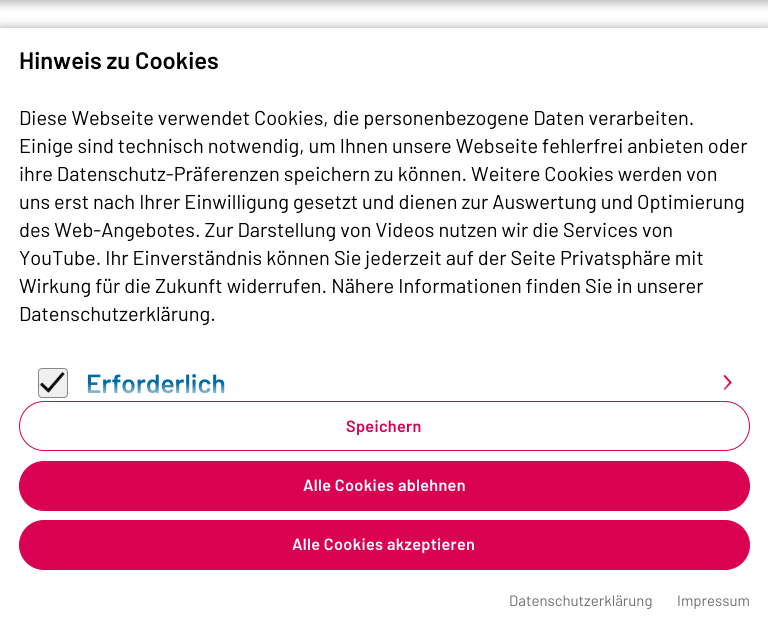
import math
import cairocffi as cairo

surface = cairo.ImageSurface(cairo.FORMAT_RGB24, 768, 630)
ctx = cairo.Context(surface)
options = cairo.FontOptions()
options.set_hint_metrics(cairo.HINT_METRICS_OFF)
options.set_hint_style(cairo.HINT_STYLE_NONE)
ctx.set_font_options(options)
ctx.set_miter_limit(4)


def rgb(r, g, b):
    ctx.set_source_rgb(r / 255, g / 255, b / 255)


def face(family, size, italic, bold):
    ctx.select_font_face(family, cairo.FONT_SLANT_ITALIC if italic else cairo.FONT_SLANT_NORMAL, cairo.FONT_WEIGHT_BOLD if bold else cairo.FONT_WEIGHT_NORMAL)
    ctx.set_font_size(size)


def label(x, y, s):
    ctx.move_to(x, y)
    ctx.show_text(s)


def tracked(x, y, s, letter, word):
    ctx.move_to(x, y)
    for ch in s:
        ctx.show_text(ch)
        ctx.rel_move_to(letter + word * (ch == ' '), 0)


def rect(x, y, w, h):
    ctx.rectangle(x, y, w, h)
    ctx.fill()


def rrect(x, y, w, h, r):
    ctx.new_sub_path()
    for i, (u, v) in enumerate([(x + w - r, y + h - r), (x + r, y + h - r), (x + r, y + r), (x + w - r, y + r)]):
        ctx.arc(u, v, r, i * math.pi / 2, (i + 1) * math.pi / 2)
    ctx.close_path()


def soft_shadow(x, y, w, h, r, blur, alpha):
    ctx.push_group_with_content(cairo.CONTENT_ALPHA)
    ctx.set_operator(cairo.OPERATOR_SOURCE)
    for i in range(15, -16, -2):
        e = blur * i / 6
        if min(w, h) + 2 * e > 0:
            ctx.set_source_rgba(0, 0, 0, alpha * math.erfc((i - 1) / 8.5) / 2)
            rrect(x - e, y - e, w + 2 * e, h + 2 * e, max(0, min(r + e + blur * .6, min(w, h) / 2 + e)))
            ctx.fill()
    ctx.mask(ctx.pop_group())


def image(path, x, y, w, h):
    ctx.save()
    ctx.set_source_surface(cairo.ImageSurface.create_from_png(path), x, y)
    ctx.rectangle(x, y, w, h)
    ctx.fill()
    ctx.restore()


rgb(255, 255, 255)
ctx.paint()
rgb(0, 0, 0)
soft_shadow(-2, -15, 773, 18, 0, 5, 0.3)
soft_shadow(0, 28, 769, 602, 0, 5.5, 0.33)
rgb(255, 255, 255)
rect(0, 28, 768, 602)
face('Barlow SemiBold', 23.75, 0, 0)
rgb(0, 0, 0)
label(19, 69, 'Hinweis zu Cookies')
face('Barlow', 20, 0, 0)
label(19, 125, 'Diese Webseite verwendet Cookies, die personenbezogene Daten verarbeiten.')
label(19, 153, 'Einige sind technisch notwendig, um Ihnen unsere Webseite fehlerfrei anbieten oder')
label(19, 181, 'ihre Datenschutz-Präferenzen speichern zu können. Weitere Cookies werden von')
label(19, 209, 'uns erst nach Ihrer Einwilligung gesetzt und dienen zur Auswertung und Optimierung')
label(19, 237, 'des Web-Angebotes. Zur Darstellung von Videos nutzen wir die Services von')
label(19, 265, 'YouTube. Ihr Einverständnis können Sie jederzeit auf der Seite Privatsphäre mit')
label(19, 293, 'Wirkung für die Zukunft widerrufen. Nähere Informationen finden Sie in unserer')
label(19, 321, 'Datenschutzerklärung.')
rgb(240, 240, 240)
rrect(38.5, 368.5, 29, 29, 3.5)
ctx.fill_preserve()
rgb(136, 136, 136)
ctx.set_line_width(1)
ctx.stroke()
image('image0.png', 39, 372, 26, 21)
face('Barlow SemiBold', 26.25, 0, 0)
rgb(0, 106, 164)
label(86, 393, 'Erforderlich')
image('image1.png', 723, 375, 9, 15)
gradient = cairo.LinearGradient(384, 401, 384, 383)
gradient.add_color_stop_rgba(0, 1, 1, 1, 1)
gradient.add_color_stop_rgba(1, 1, 1, 1, 0)
ctx.set_source(gradient)
rect(88, 383, 643, 11)
rrect(19.5, 401.5, 730, 49, 24.5)
rgb(218, 0, 82)
ctx.stroke()
face('Barlow SemiBold', 16.25, 0, 0)
tracked(346, 432, 'Speichern', 0.3, 0)
rrect(19.5, 461.5, 730, 49, 24.5)
ctx.fill_preserve()
ctx.stroke()
rgb(255, 255, 255)
tracked(303, 491, 'Alle Cookies ablehnen', 0.3, 0)
rgb(218, 0, 82)
rrect(19.5, 520.5, 730, 49, 24.5)
ctx.fill_preserve()
ctx.stroke()
rgb(255, 255, 255)
tracked(292, 550, 'Alle Cookies akzeptieren', 0.3, 0)
face('Barlow', 15, 0, 0)
rgb(110, 110, 110)
label(509, 606, 'Datenschutzerklärung')
label(677, 606, 'Impressum')
surface.write_to_png('render.png')
